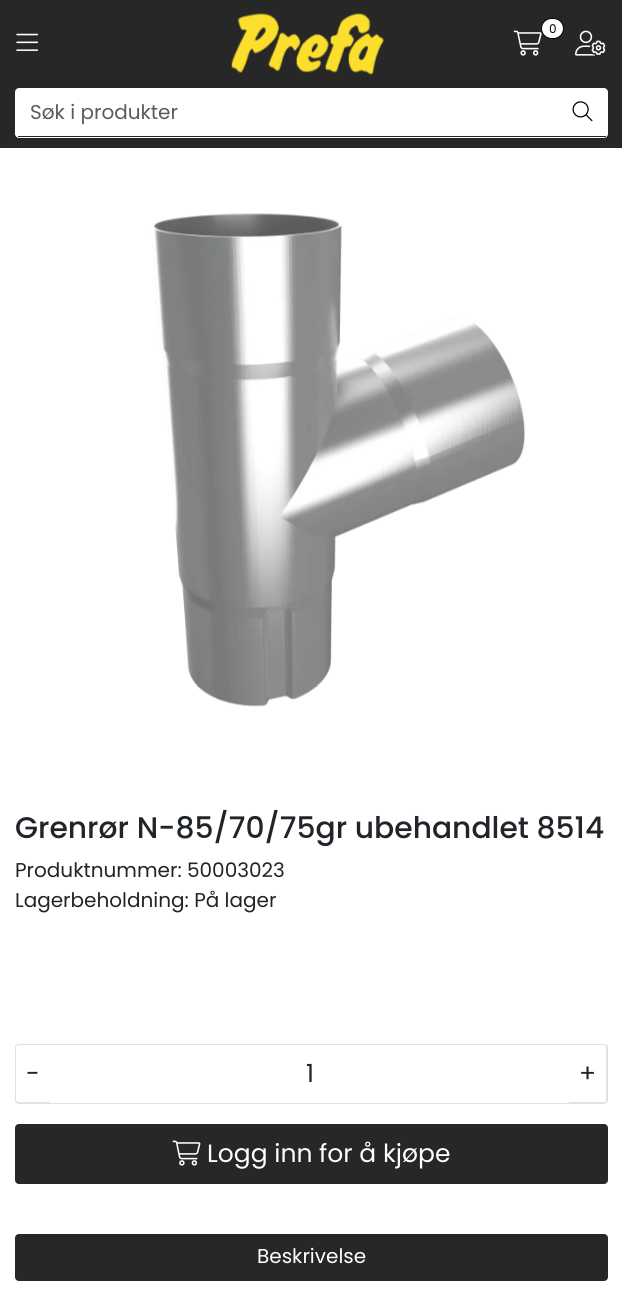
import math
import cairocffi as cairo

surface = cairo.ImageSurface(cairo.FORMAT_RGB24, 622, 1291)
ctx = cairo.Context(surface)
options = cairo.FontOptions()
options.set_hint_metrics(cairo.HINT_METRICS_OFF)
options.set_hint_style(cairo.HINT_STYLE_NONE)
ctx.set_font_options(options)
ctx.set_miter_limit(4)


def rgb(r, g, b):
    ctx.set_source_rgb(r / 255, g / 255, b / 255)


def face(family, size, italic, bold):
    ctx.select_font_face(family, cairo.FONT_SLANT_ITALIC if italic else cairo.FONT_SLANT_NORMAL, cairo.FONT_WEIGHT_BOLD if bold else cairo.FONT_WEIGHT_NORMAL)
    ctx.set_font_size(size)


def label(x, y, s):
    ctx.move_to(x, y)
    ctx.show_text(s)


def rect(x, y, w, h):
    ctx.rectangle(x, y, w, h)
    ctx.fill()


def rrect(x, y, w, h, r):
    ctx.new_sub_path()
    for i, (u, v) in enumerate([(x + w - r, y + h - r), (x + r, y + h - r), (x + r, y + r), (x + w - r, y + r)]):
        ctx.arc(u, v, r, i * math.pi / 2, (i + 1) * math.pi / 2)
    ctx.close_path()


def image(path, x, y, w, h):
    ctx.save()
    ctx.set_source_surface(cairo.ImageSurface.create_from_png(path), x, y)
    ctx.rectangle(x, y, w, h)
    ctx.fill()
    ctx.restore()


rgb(255, 255, 255)
ctx.paint()
rgb(39, 39, 39)
rect(0, 0, 622, 148)
image('image0.png', 231, 13, 153, 62)
image('image1.png', 513, 30, 29, 26)
rgb(255, 255, 255)
rrect(541.5, 18.5, 22, 20, 10)
ctx.fill_preserve()
rgb(0, 0, 0)
ctx.set_line_width(1)
ctx.stroke()
face('Poppins', 12, 0, 0)
label(549, 33, '0')
image('image2.png', 575, 30, 31, 26)
image('image3.png', 16, 33, 23, 18)
rgb(255, 255, 255)
ctx.new_path()
ctx.move_to(19, 88)
ctx.line_to(559, 88)
ctx.line_to(559, 138)
ctx.line_to(19, 138)
ctx.curve_to(17, 138, 15, 136, 15, 134)
ctx.line_to(15, 92)
ctx.curve_to(15, 90, 17, 88, 19, 88)
ctx.close_path()
ctx.fill()
rgb(39, 39, 39)
rect(18, 136, 541, 1)
face('Poppins', 20, 0, 0)
rgb(89, 92, 95)
label(30, 119, 'Søk i produkter')
rgb(255, 255, 255)
ctx.new_path()
ctx.move_to(558, 88)
ctx.line_to(604, 88)
ctx.curve_to(606, 88, 608, 90, 608, 92)
ctx.line_to(608, 134)
ctx.curve_to(608, 136, 606, 138, 604, 138)
ctx.line_to(558, 138)
ctx.close_path()
ctx.fill()
rgb(39, 39, 39)
rect(558, 136, 48, 1)
image('image4.png', 572, 101, 21, 21)
image('image5.png', 151, 213, 374, 494)
face('Poppins Medium', 29.75, 0, 0)
rgb(33, 37, 41)
label(15, 838, 'Grenrør N-85/70/75gr ubehandlet 8514')
face('Poppins', 20, 0, 0)
label(15, 877, 'Produktnummer: 50003023')
label(15, 907, 'Lagerbeholdning: På lager')
rgb(222, 226, 230)
rect(49, 1044, 521, 1)
rect(49, 1103, 521, 1)
rgb(255, 255, 255)
ctx.new_path()
ctx.move_to(19, 1044)
ctx.line_to(50, 1044)
ctx.line_to(50, 1104)
ctx.line_to(19, 1104)
ctx.curve_to(17, 1104, 15, 1102, 15, 1100)
ctx.line_to(15, 1048)
ctx.curve_to(15, 1046, 17, 1044, 19, 1044)
ctx.close_path()
ctx.fill()
rgb(222, 226, 230)
ctx.set_fill_rule(cairo.FILL_RULE_EVEN_ODD)
ctx.new_path()
ctx.move_to(19, 1044)
ctx.line_to(50, 1044)
ctx.line_to(50, 1104)
ctx.line_to(19, 1104)
ctx.curve_to(17, 1104, 15, 1102, 15, 1100)
ctx.line_to(15, 1048)
ctx.curve_to(15, 1045, 17, 1044, 19, 1044)
ctx.close_path()
ctx.move_to(19, 1045)
ctx.line_to(50, 1045)
ctx.line_to(50, 1102)
ctx.line_to(19, 1102)
ctx.curve_to(17, 1102, 16, 1101, 16, 1100)
ctx.line_to(16, 1048)
ctx.curve_to(16, 1046, 17, 1045, 19, 1045)
ctx.close_path()
ctx.fill()
face('Poppins', 25, 0, 0)
rgb(33, 37, 41)
label(26, 1082, '-')
label(306, 1082, '1')
rgb(255, 255, 255)
ctx.new_path()
ctx.move_to(569, 1044)
ctx.line_to(604, 1044)
ctx.curve_to(606, 1044, 608, 1046, 608, 1048)
ctx.line_to(608, 1100)
ctx.curve_to(608, 1102, 606, 1104, 604, 1104)
ctx.line_to(569, 1104)
ctx.close_path()
ctx.fill()
rgb(222, 226, 230)
ctx.new_path()
ctx.move_to(569, 1044)
ctx.line_to(604, 1044)
ctx.curve_to(606, 1044, 608, 1045, 608, 1048)
ctx.line_to(608, 1100)
ctx.curve_to(608, 1102, 606, 1104, 604, 1104)
ctx.line_to(569, 1104)
ctx.close_path()
ctx.move_to(569, 1045)
ctx.line_to(604, 1045)
ctx.curve_to(605, 1045, 606, 1046, 606, 1048)
ctx.line_to(606, 1100)
ctx.curve_to(606, 1101, 605, 1102, 604, 1102)
ctx.line_to(569, 1102)
ctx.close_path()
ctx.fill()
rgb(33, 37, 41)
label(579, 1082, '+')
rgb(39, 39, 39)
rrect(15.5, 1124.5, 592, 59, 3.5)
ctx.fill_preserve()
ctx.stroke()
image('image6.png', 172, 1140, 29, 26)
rgb(255, 255, 255)
label(207, 1162, 'Logg inn for å kjøpe')
rgb(39, 39, 39)
rrect(15.5, 1234.5, 592, 46, 3.5)
ctx.fill_preserve()
ctx.stroke()
face('Poppins', 20, 0, 0)
rgb(255, 255, 255)
label(257, 1263, 'Beskrivelse')
surface.write_to_png('render.png')
